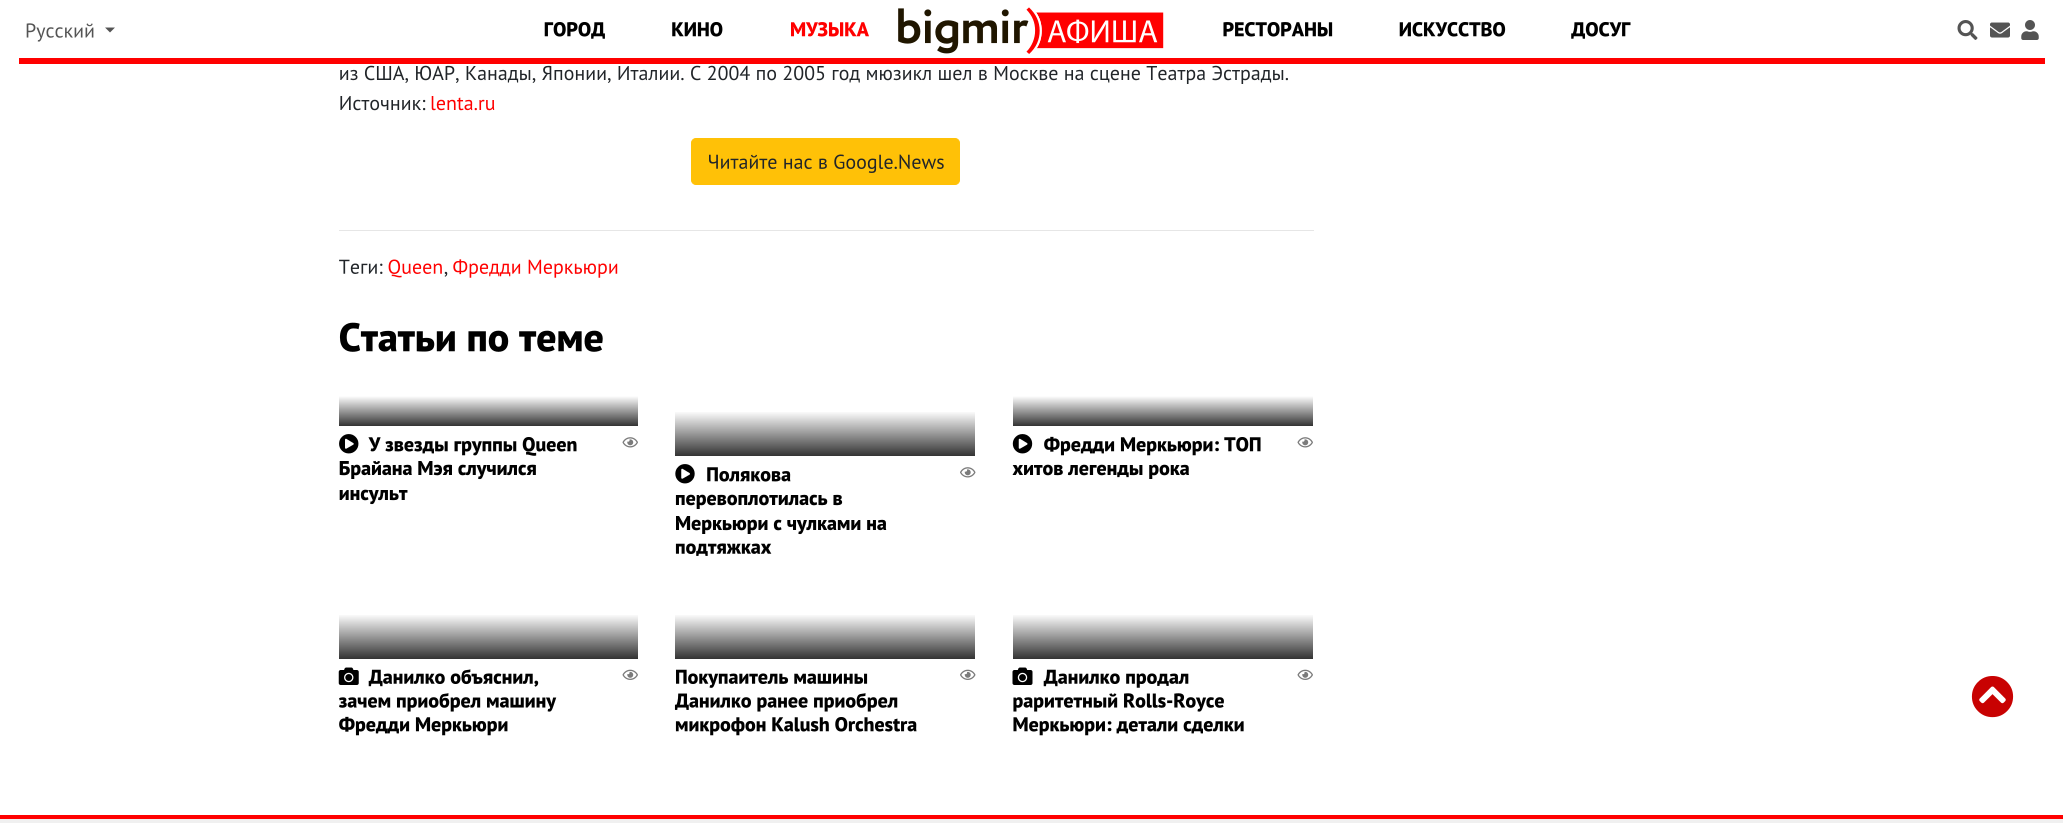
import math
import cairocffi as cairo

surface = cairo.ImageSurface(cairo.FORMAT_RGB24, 2063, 823)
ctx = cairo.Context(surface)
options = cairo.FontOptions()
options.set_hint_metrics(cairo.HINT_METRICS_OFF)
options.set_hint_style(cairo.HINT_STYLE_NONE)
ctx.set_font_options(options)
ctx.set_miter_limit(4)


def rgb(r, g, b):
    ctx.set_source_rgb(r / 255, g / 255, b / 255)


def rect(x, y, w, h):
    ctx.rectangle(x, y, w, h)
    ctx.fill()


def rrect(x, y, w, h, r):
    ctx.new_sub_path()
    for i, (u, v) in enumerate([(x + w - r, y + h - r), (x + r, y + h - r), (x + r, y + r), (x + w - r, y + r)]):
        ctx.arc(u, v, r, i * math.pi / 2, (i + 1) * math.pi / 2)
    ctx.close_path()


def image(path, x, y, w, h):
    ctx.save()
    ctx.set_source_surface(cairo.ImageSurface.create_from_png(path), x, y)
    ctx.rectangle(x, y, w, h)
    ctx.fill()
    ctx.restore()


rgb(255, 255, 255)
ctx.paint()
rgb(255, 0, 0)
rect(19, 58, 2026, 6)
image('image0.png', 898, 7, 266, 47)
image('image1.png', 1957, 20, 21, 20)
image('image2.png', 1990, 22, 20, 16)
image('image3.png', 2021, 20, 18, 20)
image('image4.png', 26, 23, 68, 19)
rgb(84, 84, 84)
ctx.new_path()
ctx.move_to(105, 27.5)
ctx.line_to(115, 27.5)
ctx.line_to(110, 32.5)
ctx.close_path()
ctx.fill()
image('image5.png', 544, 22, 61, 17)
image('image6.png', 672, 22, 51, 15)
image('image7.png', 791, 22, 78, 15)
image('image8.png', 1223, 22, 110, 15)
image('image9.png', 1399, 22, 107, 15)
image('image10.png', 1571, 22, 60, 17)
image('image11.png', 340, 65, 948, 19)
image('image12.png', 340, 96, 86, 15)
image('image13.png', 431, 96, 64, 15)
rgb(255, 193, 7)
rrect(691.5, 138.5, 268, 46, 4.5)
ctx.fill_preserve()
ctx.set_line_width(1)
ctx.stroke()
image('image14.png', 709, 154, 235, 19)
rgb(230, 230, 230)
rect(339, 230, 975, 1)
image('image15.png', 339, 259, 44, 15)
image('image16.png', 388, 259, 54, 19)
image('image17.png', 444, 271, 4, 6)
image('image18.png', 453, 259, 165, 19)
image('image19.png', 339, 322, 264, 30)
gradient = cairo.LinearGradient(488, 396, 488, 426)
gradient.add_color_stop_rgba(0, 1, 1, 1, 1)
gradient.add_color_stop_rgba(1, 0.2, 0.2, 0.2, 1)
ctx.set_source(gradient)
rect(339, 396, 299, 30)
image('image20.png', 339, 434, 20, 20)
image('image21.png', 368, 437, 209, 19)
image('image22.png', 339, 460, 197, 20)
image('image23.png', 339, 489, 69, 16)
image('image24.png', 622, 437, 16, 11)
gradient = cairo.LinearGradient(825, 411, 825, 456)
gradient.add_color_stop_rgba(0, 1, 1, 1, 1)
gradient.add_color_stop_rgba(1, 0.2, 0.2, 0.2, 1)
ctx.set_source(gradient)
rect(675, 412, 300, 44)
image('image25.png', 675, 464, 20, 20)
image('image26.png', 707, 467, 84, 15)
image('image27.png', 675, 494, 168, 15)
image('image28.png', 676, 516, 211, 19)
image('image29.png', 675, 543, 97, 13)
image('image30.png', 960, 467, 16, 11)
gradient = cairo.LinearGradient(1163, 396, 1163, 426)
gradient.add_color_stop_rgba(0, 1, 1, 1, 1)
gradient.add_color_stop_rgba(1, 0.2, 0.2, 0.2, 1)
ctx.set_source(gradient)
rect(1013, 396, 300, 30)
image('image31.png', 1012, 434, 21, 20)
image('image32.png', 1044, 436, 217, 20)
image('image33.png', 1012, 464, 177, 15)
image('image24.png', 1297, 437, 16, 11)
gradient = cairo.LinearGradient(488, 614, 488, 659)
gradient.add_color_stop_rgba(0, 1, 1, 1, 1)
gradient.add_color_stop_rgba(1, 0.2, 0.2, 0.2, 1)
ctx.set_source(gradient)
rect(339, 615, 299, 44)
image('image34.png', 338, 667, 21, 18)
image('image35.png', 368, 669, 171, 18)
image('image36.png', 339, 693, 218, 19)
image('image37.png', 339, 716, 169, 20)
image('image38.png', 622, 669, 16, 11)
gradient = cairo.LinearGradient(825, 614, 825, 659)
gradient.add_color_stop_rgba(0, 1, 1, 1, 1)
gradient.add_color_stop_rgba(1, 0.2, 0.2, 0.2, 1)
ctx.set_source(gradient)
rect(675, 615, 300, 44)
image('image39.png', 676, 669, 192, 19)
image('image40.png', 674, 693, 224, 19)
image('image41.png', 675, 717, 242, 19)
image('image42.png', 960, 669, 16, 11)
gradient = cairo.LinearGradient(1163, 614, 1163, 659)
gradient.add_color_stop_rgba(0, 1, 1, 1, 1)
gradient.add_color_stop_rgba(1, 0.2, 0.2, 0.2, 1)
ctx.set_source(gradient)
rect(1013, 615, 300, 44)
image('image43.png', 1012, 667, 21, 18)
image('image44.png', 1043, 669, 146, 19)
image('image45.png', 1013, 693, 211, 19)
image('image46.png', 1013, 717, 231, 19)
image('image38.png', 1297, 669, 16, 11)
image('image47.png', 1971, 676, 43, 42)
rgb(240, 240, 240)
rect(0, 819, 2063, 4)
rgb(255, 0, 0)
rect(0, 815, 2063, 4)
surface.write_to_png('render.png')
